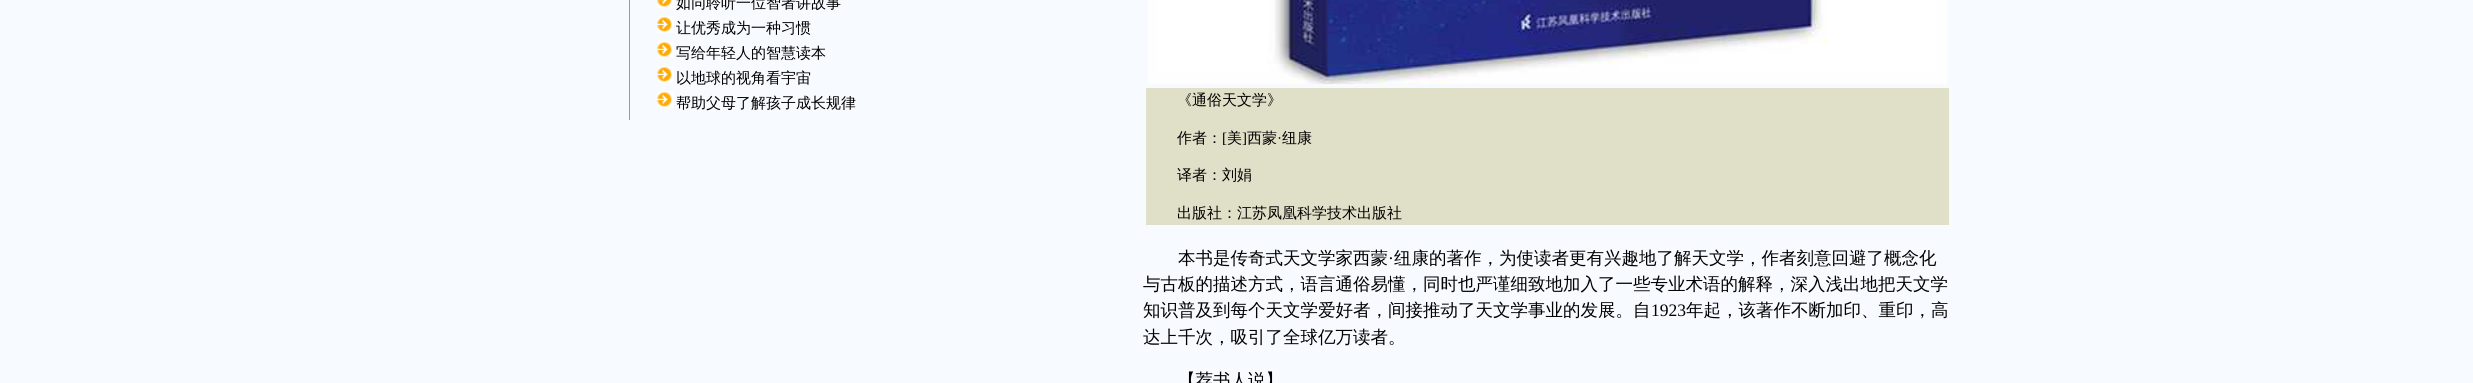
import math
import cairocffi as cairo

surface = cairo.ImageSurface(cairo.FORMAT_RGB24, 2473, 383)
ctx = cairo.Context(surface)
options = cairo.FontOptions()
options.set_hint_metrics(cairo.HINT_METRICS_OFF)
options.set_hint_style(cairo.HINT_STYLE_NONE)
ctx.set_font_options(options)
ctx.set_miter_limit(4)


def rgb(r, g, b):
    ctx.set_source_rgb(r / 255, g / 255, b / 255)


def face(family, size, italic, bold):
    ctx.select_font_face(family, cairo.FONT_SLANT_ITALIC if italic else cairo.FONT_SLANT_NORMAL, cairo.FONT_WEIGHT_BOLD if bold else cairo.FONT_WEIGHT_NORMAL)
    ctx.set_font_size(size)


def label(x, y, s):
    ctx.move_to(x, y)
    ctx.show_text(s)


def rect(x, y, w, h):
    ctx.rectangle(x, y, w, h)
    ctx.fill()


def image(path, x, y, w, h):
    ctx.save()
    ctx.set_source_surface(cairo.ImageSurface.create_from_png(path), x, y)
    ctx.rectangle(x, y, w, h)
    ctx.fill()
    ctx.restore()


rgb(247, 250, 255)
ctx.paint()
rgb(153, 153, 153)
ctx.new_path()
ctx.move_to(629, 120)
ctx.line_to(629, -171)
ctx.line_to(630, -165)
ctx.line_to(630, 120)
ctx.close_path()
ctx.fill()
image('image0.png', 657, 0, 17, 8)
face('WenQuanYi Zen Hei Medium', 15, 0, 0)
rgb(0, 0, 0)
label(676, 8, '如同聆听一位智者讲故事')
image('image1.png', 657, 16, 17, 17)
label(676, 33, '让优秀成为一种习惯')
image('image1.png', 657, 41, 17, 17)
label(676, 58, '写给年轻人的智慧读本')
image('image1.png', 657, 66, 17, 17)
label(676, 83, '以地球的视角看宇宙')
image('image1.png', 657, 91, 17, 17)
label(676, 108, '帮助父母了解孩子成长规律')
image('image2.png', 1148, 0, 799, 84)
rgb(224, 224, 201)
rect(1146, 88, 803, 137)
rgb(0, 0, 0)
label(1177, 105, '《通俗天文学》')
label(1177, 143, '作者：')
face('Liberation Serif', 15, 0, 0)
label(1222, 143, '[')
face('WenQuanYi Zen Hei Medium', 15, 0, 0)
label(1227, 143, '美')
face('Liberation Serif', 15, 0, 0)
label(1242, 143, ']')
face('WenQuanYi Zen Hei Medium', 15, 0, 0)
label(1247, 143, '西蒙')
face('Liberation Serif', 15, 0, 0)
label(1277, 143, '·')
face('WenQuanYi Zen Hei Medium', 15, 0, 0)
label(1282, 143, '纽康')
label(1177, 180, '译者：刘娟')
label(1177, 218, '出版社：江苏凤凰科学技术出版社')
face('WenQuanYi Zen Hei Medium', 17.5, 0, 0)
label(1178, 264, '本书是传奇式天文学家西蒙')
face('Liberation Serif', 17.5, 0, 0)
label(1388, 264, '·')
face('WenQuanYi Zen Hei Medium', 17.5, 0, 0)
label(1394, 264, '纽康的著作，为使读者更有兴趣地了解天文学，作者刻意回避了概念化')
label(1143, 290, '与古板的描述方式，语言通俗易懂，同时也严谨细致地加入了一些专业术语的解释，深入浅出地把天文学')
label(1143, 316, '知识普及到每个天文学爱好者，间接推动了天文学事业的发展。自')
face('Liberation Serif', 17.5, 0, 0)
label(1651, 316, '1923')
face('WenQuanYi Zen Hei Medium', 17.5, 0, 0)
label(1686, 316, '年起，该著作不断加印、重印，高')
label(1143, 343, '达上千次，吸引了全球亿万读者。')
label(1178, 386, '【荐书人说】')
surface.write_to_png('render.png')
